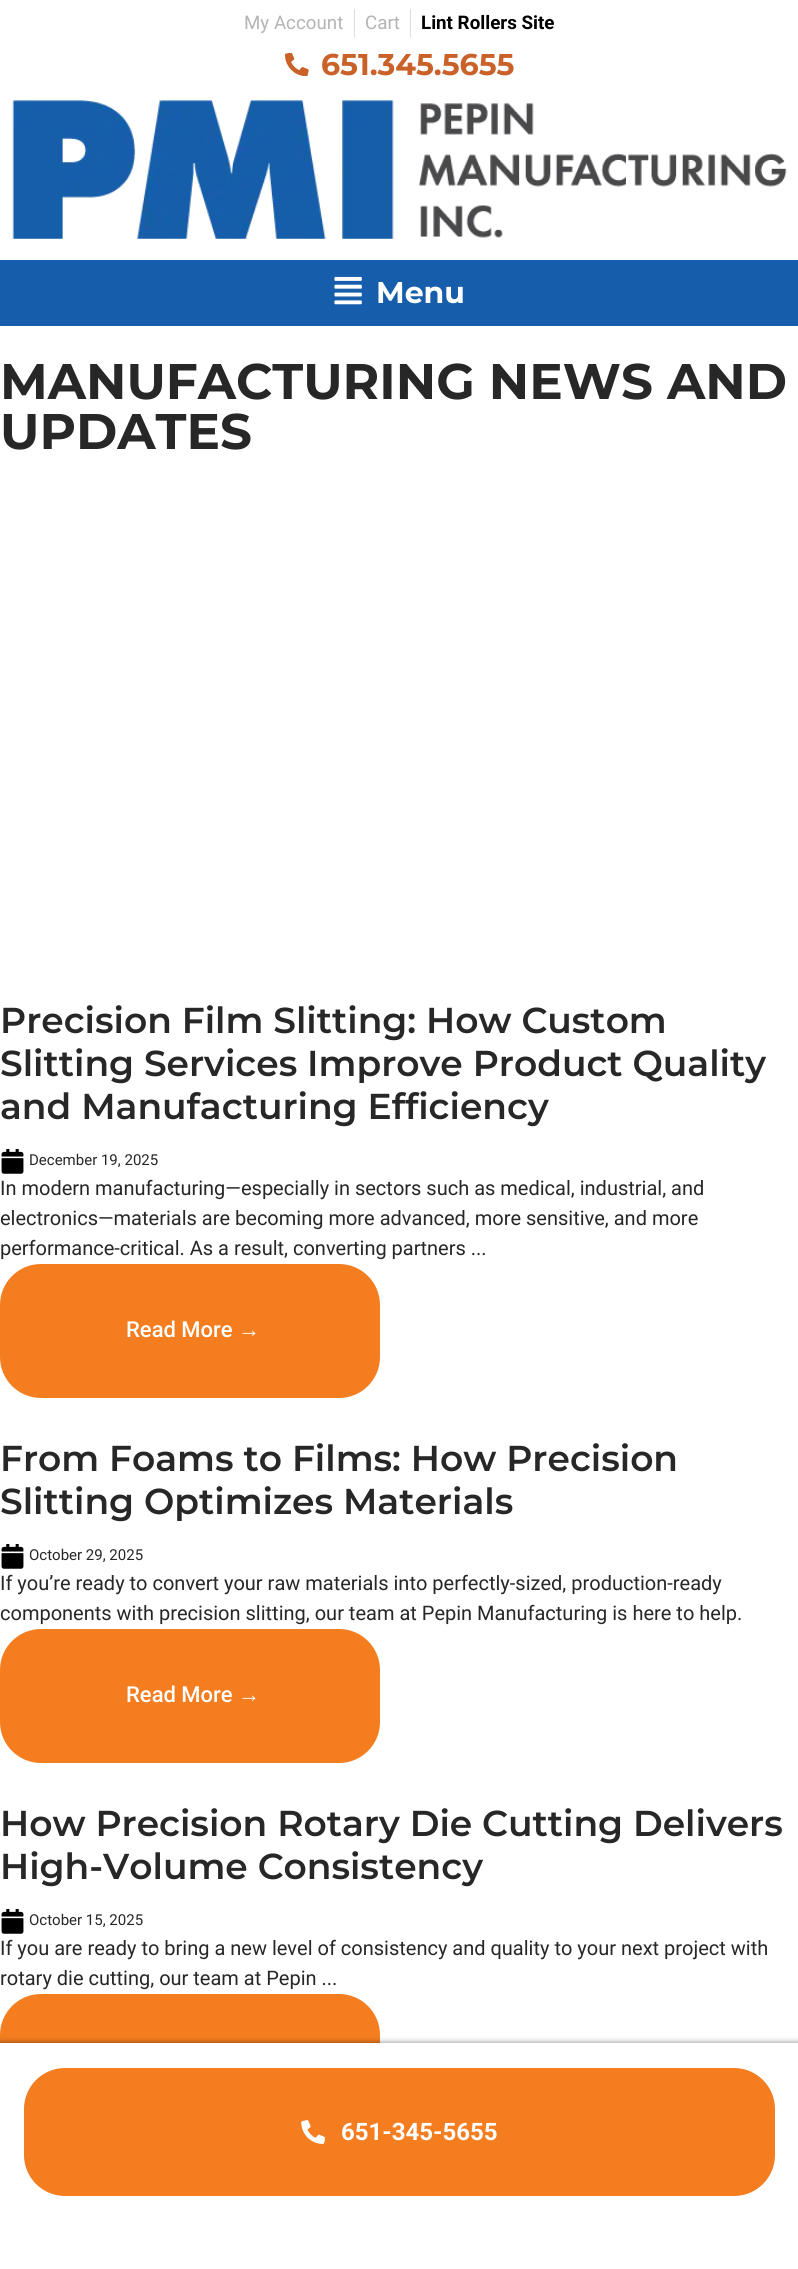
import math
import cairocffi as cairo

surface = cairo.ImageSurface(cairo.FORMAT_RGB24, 798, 2269)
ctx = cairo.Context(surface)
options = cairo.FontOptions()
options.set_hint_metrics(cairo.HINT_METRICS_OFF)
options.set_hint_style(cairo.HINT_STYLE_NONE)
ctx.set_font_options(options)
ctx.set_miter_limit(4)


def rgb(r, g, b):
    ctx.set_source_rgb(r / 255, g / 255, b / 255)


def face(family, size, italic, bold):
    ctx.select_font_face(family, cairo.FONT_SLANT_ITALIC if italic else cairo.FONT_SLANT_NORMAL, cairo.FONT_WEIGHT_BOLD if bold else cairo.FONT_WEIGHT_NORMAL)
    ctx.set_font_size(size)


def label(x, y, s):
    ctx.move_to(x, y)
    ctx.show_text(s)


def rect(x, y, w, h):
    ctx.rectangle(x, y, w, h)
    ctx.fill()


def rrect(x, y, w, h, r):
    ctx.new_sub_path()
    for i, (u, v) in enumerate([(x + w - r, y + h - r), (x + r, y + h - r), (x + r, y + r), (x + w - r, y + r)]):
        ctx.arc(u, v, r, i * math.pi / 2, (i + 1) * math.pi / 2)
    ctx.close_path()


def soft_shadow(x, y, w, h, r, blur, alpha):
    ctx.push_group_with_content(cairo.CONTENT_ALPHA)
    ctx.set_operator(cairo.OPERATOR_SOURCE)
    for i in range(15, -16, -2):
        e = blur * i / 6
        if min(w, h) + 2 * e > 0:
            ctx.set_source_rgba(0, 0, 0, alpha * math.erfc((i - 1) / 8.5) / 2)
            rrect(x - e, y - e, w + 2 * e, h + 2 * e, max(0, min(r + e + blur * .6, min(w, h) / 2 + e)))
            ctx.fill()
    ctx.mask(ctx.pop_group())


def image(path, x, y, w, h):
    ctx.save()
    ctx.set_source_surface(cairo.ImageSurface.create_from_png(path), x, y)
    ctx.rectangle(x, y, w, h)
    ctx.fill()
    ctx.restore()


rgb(255, 255, 255)
ctx.paint()
face('Roboto', 18.75, 0, 0)
rgb(180, 180, 180)
label(244, 29, 'My Account')
rgb(221, 221, 221)
rect(354, 9, 1, 29)
rgb(180, 180, 180)
label(365, 29, 'Cart')
rgb(221, 221, 221)
rect(410, 9, 1, 29)
face('Roboto', 18.75, 0, 1)
rgb(0, 0, 0)
label(421, 29, 'Lint Rollers Site')
image('image0.png', 285, 53, 24, 23)
face('Montserrat', 30, 0, 1)
rgb(202, 97, 40)
label(321, 75, '651.345.5655')
image('image1.png', 12, 100, 775, 139)
rgb(22, 94, 171)
rect(0, 260, 798, 66)
image('image2.png', 334, 276, 28, 29)
rgb(255, 255, 255)
label(376, 303, 'Menu')
face('Montserrat', 50, 0, 1)
rgb(39, 39, 39)
label(0, 399, 'MANUFACTURING NEWS AND')
label(0, 449, 'UPDATES')
face('Montserrat SemiBold', 36, 0, 0)
label(0, 1033, 'Precision Film Slitting: How Custom')
label(0, 1076, 'Slitting Services Improve Product Quality')
label(0, 1119, 'and Manufacturing Efficiency')
image('image3.png', 1, 1149, 23, 25)
face('Roboto', 15, 0, 0)
label(29, 1165, 'December 19, 2025')
face('Roboto', 20, 0, 0)
label(0, 1195, 'In modern manufacturing—especially in sectors such as medical, industrial, and')
label(0, 1225, 'electronics—materials are becoming more advanced, more sensitive, and more')
label(0, 1255, 'performance-critical. As a result, converting partners ...')
rgb(244, 125, 32)
rrect(0, 1264, 380, 134, 41)
ctx.fill()
face('Roboto Medium', 22, 0, 0)
rgb(255, 255, 255)
label(126, 1337, 'Read More')
face('Liberation Sans', 22, 0, 0)
label(238, 1337, '→')
face('Montserrat SemiBold', 36, 0, 0)
rgb(39, 39, 39)
label(0, 1471, 'From Foams to Films: How Precision')
label(0, 1514, 'Slitting Optimizes Materials')
image('image3.png', 1, 1544, 23, 25)
face('Roboto', 15, 0, 0)
label(29, 1560, 'October 29, 2025')
face('Roboto', 20, 0, 0)
label(0, 1590, 'If you’re ready to convert your raw materials into perfectly-sized, production-ready')
label(0, 1620, 'components with precision slitting, our team at Pepin Manufacturing is here to help.')
rgb(244, 125, 32)
rrect(0, 1629, 380, 134, 41)
ctx.fill()
face('Roboto Medium', 22, 0, 0)
rgb(255, 255, 255)
label(126, 1702, 'Read More')
face('Liberation Sans', 22, 0, 0)
label(238, 1702, '→')
face('Montserrat SemiBold', 36, 0, 0)
rgb(39, 39, 39)
label(0, 1836, 'How Precision Rotary Die Cutting Delivers')
label(0, 1879, 'High-Volume Consistency')
image('image3.png', 1, 1909, 23, 25)
face('Roboto', 15, 0, 0)
label(29, 1925, 'October 15, 2025')
face('Roboto', 20, 0, 0)
label(0, 1955, 'If you are ready to bring a new level of consistency and quality to your next project with')
label(0, 1985, 'rotary die cutting, our team at Pepin ...')
rgb(244, 125, 32)
rrect(0, 1994, 380, 134, 41)
ctx.fill()
rgb(0, 0, 0)
soft_shadow(0, 2043, 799, 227, 0, 3, 0.5)
rgb(255, 255, 255)
rect(0, 2043, 798, 226)
rgb(244, 125, 32)
rrect(24, 2068, 751, 128, 41)
ctx.fill()
image('image4.png', 301, 2120, 24, 24)
face('Roboto', 24, 0, 1)
rgb(255, 255, 255)
label(341, 2140, '651-345-5655')
surface.write_to_png('render.png')
